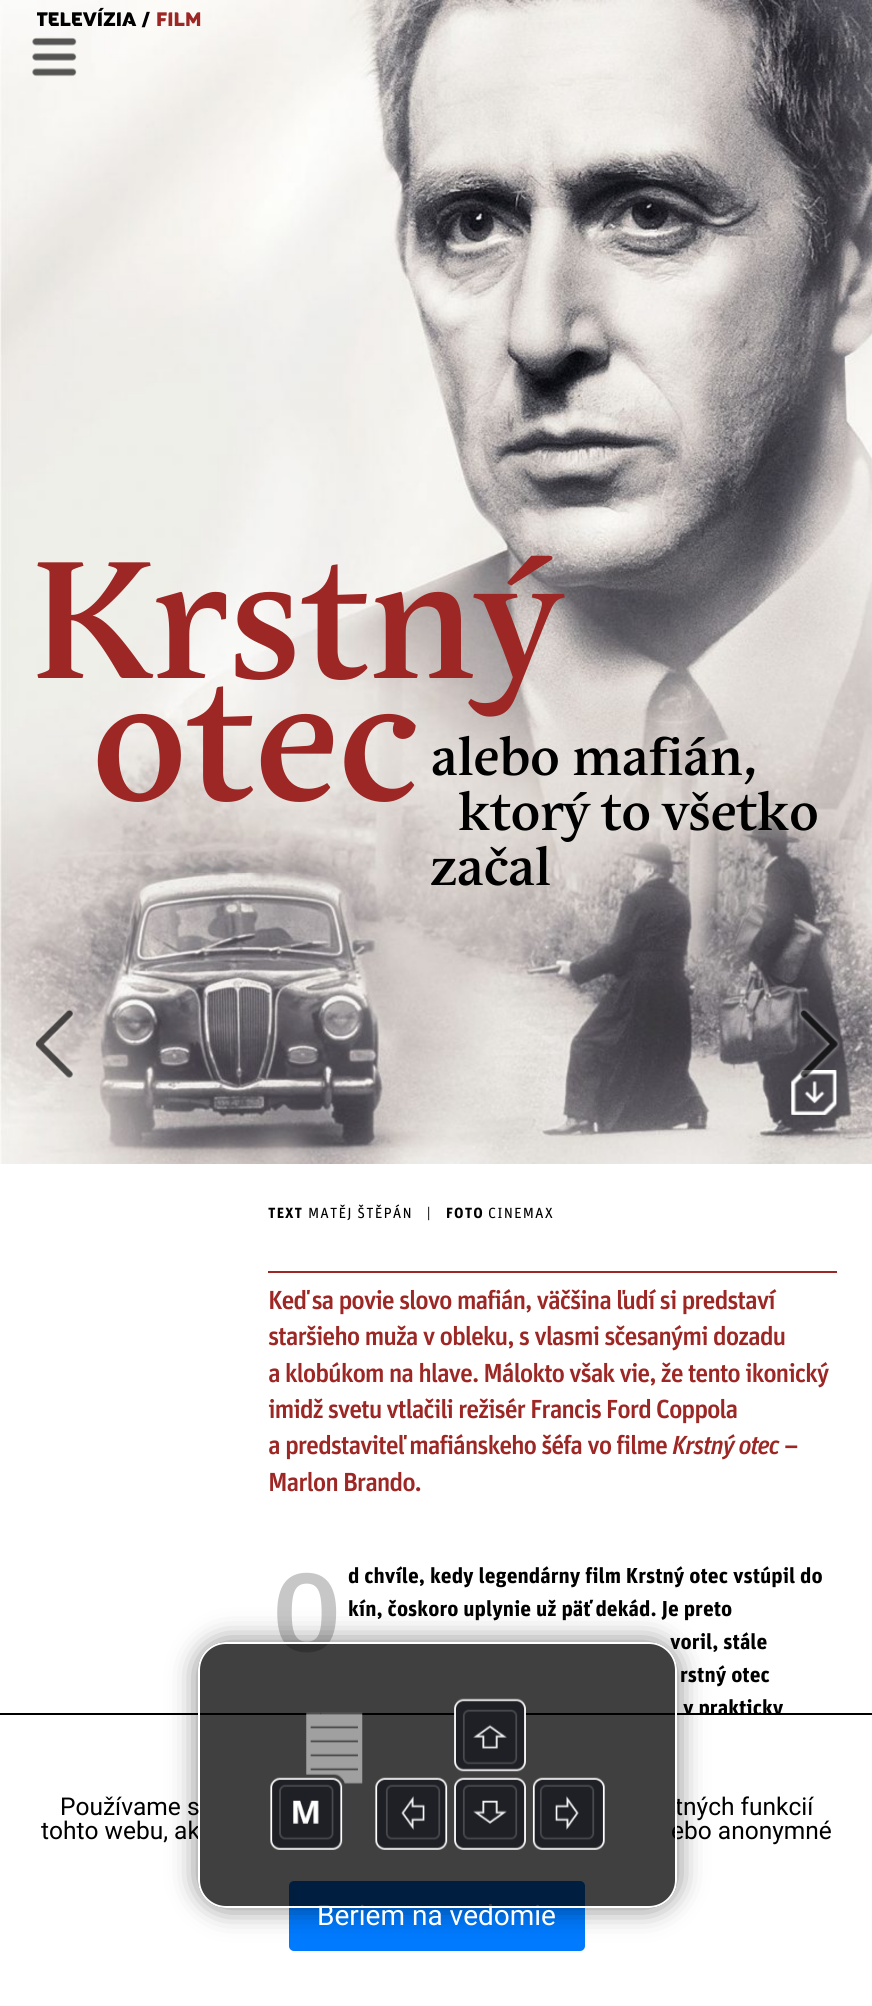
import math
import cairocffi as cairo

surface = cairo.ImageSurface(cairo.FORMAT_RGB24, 872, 2006)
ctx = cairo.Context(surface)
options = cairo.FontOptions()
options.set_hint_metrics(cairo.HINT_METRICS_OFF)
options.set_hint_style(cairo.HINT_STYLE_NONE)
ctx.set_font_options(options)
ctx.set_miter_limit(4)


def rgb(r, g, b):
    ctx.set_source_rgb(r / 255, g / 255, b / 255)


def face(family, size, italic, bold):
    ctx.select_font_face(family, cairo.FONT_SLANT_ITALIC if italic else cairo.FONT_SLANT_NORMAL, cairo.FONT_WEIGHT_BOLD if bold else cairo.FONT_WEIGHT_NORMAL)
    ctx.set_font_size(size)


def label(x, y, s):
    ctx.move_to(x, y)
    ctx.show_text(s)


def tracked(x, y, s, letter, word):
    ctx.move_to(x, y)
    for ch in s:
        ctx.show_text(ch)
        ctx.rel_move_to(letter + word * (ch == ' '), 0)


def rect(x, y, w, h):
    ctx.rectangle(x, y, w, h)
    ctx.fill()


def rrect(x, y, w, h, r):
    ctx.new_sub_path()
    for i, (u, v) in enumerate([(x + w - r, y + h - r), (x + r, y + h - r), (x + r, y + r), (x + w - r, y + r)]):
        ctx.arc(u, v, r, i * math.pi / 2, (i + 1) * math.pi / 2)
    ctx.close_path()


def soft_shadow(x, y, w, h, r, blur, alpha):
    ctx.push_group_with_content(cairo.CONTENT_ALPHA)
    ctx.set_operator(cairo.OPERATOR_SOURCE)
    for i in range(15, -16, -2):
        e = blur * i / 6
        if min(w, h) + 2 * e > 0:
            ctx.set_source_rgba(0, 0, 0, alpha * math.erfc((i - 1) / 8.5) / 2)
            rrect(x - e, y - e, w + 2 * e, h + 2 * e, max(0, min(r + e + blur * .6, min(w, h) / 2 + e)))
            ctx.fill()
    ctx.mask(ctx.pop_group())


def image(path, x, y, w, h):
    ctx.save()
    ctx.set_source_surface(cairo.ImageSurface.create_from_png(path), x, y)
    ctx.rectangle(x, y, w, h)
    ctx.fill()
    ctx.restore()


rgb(255, 255, 255)
ctx.paint()
image('image0.png', 0, 0, 300, 300)
image('image1.png', 300, 0, 282, 291)
image('image2.png', 582, 0, 290, 291)
image('image3.png', 0, 300, 300, 291)
image('image4.png', 300, 291, 282, 291)
image('image5.png', 582, 291, 290, 291)
image('image6.png', 0, 591, 291, 283)
image('image7.png', 291, 582, 291, 300)
image('image8.png', 582, 582, 290, 292)
image('image9.png', 0, 873, 300, 291)
image('image10.png', 291, 882, 291, 282)
image('image11.png', 582, 873, 290, 291)
ctx.save()
ctx.rectangle(37, 0, 462, 37)
ctx.clip()
face('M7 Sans', 19.25, 0, 0)
rgb(0, 0, 0)
label(36, 26, 'TELEVÍZIA /')
ctx.restore()
face('M7 Sans', 19.25, 0, 0)
rgb(156, 39, 36)
label(156, 26, 'FILM')
face('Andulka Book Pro', 165, 0, 1)
tracked(32, 678, 'Krstný', 1.1, 0)
tracked(92, 800, 'otec', 1.1, 0)
face('Andulka Book Pro', 51.25, 0, 1)
rgb(0, 0, 0)
label(431, 775, 'alebo mafián,')
tracked(458, 830, 'ktorý to všetko', 0, -1)
label(430, 885, 'začal')
image('image12.png', 791, 1070, 46, 45)
image('image13.png', 804, 1081, 21, 23)
face('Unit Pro', 14.75, 0, 1)
tracked(268, 1218, 'TEXT', 1.1, 0)
face('Unit Pro', 14.75, 0, 0)
tracked(308, 1218, 'MATĚJ ŠTĚPÁN   |', 1.1, 0)
face('Unit Pro', 14.75, 0, 1)
tracked(446, 1218, 'FOTO', 1.1, 0)
face('Unit Pro', 14.75, 0, 0)
tracked(488, 1218, 'CINEMAX', 1.1, 0)
rgb(156, 39, 36)
rect(268, 1271, 569, 2)
face('Unit Pro Medium', 26.15, 0, 0)
tracked(268, 1309, 'Keď sa povie slovo mafián, väčšina ľudí si predstaví', -1.15, 0)
tracked(268, 1345, 'staršieho muža v obleku, s vlasmi sčesanými dozadu', -1.15, 0)
tracked(268, 1382, 'a klobúkom na hlave. Málokto však vie, že tento ikonický', -1.15, -0.1)
tracked(268, 1418, 'imidž svetu vtlačili režisér Francis Ford Coppola', -1.15, -0.25)
tracked(268, 1454, 'a predstaviteľ mafiánskeho šéfa vo filme', -1.15, 0)
face('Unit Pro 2 Medium', 26.15, 0, 0)
tracked(672, 1454, 'Krstný otec', -1.15, 0)
face('Unit Pro Medium', 26.15, 0, 0)
tracked(784, 1454, '–', -1.15, 0)
tracked(268, 1491, 'Marlon Brando.', -1.15, 0)
face('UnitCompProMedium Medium', 111, 0, 0)
rgb(199, 199, 199)
tracked(271, 1651, 'O', 6, 0)
face('Unit Pro', 21.6, 0, 1)
rgb(0, 0, 0)
label(348, 1583, 'd chvíle, kedy legendárny film Krstný otec vstúpil do')
label(348, 1616, 'kín, čoskoro uplynie už päť dekád. Je preto')
label(670, 1649, 'voril, stále')
label(680, 1682, 'rstný otec')
label(683, 1715, 'v prakticky')
image('image14.png', 32, 37, 45, 40)
image('image15.png', 34, 1008, 41, 71)
image('image16.png', 797, 1007, 44, 74)
rgb(255, 255, 255)
rect(699, 1715, 81, 5)
rgb(0, 0, 0)
rect(0, 1713, 872, 2)
rgb(0, 122, 255)
rrect(289, 1881, 296, 70, 5)
ctx.fill()
ctx.save()
ctx.set_fill_rule(cairo.FILL_RULE_EVEN_ODD)
ctx.new_path()
ctx.move_to(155, 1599)
ctx.line_to(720, 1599)
ctx.line_to(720, 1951)
ctx.line_to(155, 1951)
ctx.close_path()
ctx.move_to(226, 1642)
ctx.line_to(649, 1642)
ctx.curve_to(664.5, 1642, 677, 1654.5, 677, 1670)
ctx.line_to(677, 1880)
ctx.curve_to(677, 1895.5, 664.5, 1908, 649, 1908)
ctx.line_to(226, 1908)
ctx.curve_to(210.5, 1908, 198, 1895.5, 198, 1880)
ctx.line_to(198, 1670)
ctx.curve_to(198, 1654.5, 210.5, 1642, 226, 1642)
ctx.close_path()
ctx.clip()
rgb(0, 0, 0)
soft_shadow(198, 1642, 479, 266, 28, 14, 0.5)
ctx.restore()
face('Roboto', 24.5, 0, 0)
rgb(0, 0, 0)
label(675, 1815, 'tných funkcií')
label(41, 1839, 'tohto webu, ak')
label(671, 1839, 'ebo anonymné')
face('Roboto', 28, 0, 0)
rgb(255, 255, 255)
label(317, 1925, 'Beriem na vedomie')
ctx.set_source_rgba(0, 0, 0, 0.75)
rrect(198, 1642, 479, 266, 28)
ctx.fill()
image('image17.png', 270, 1698, 335, 152)
rrect(199, 1643, 477, 264, 27)
rgb(255, 255, 255)
ctx.stroke()
face('Roboto', 24.5, 0, 0)
rgb(0, 0, 0)
label(60, 1815, 'Používame s')
surface.write_to_png('render.png')
